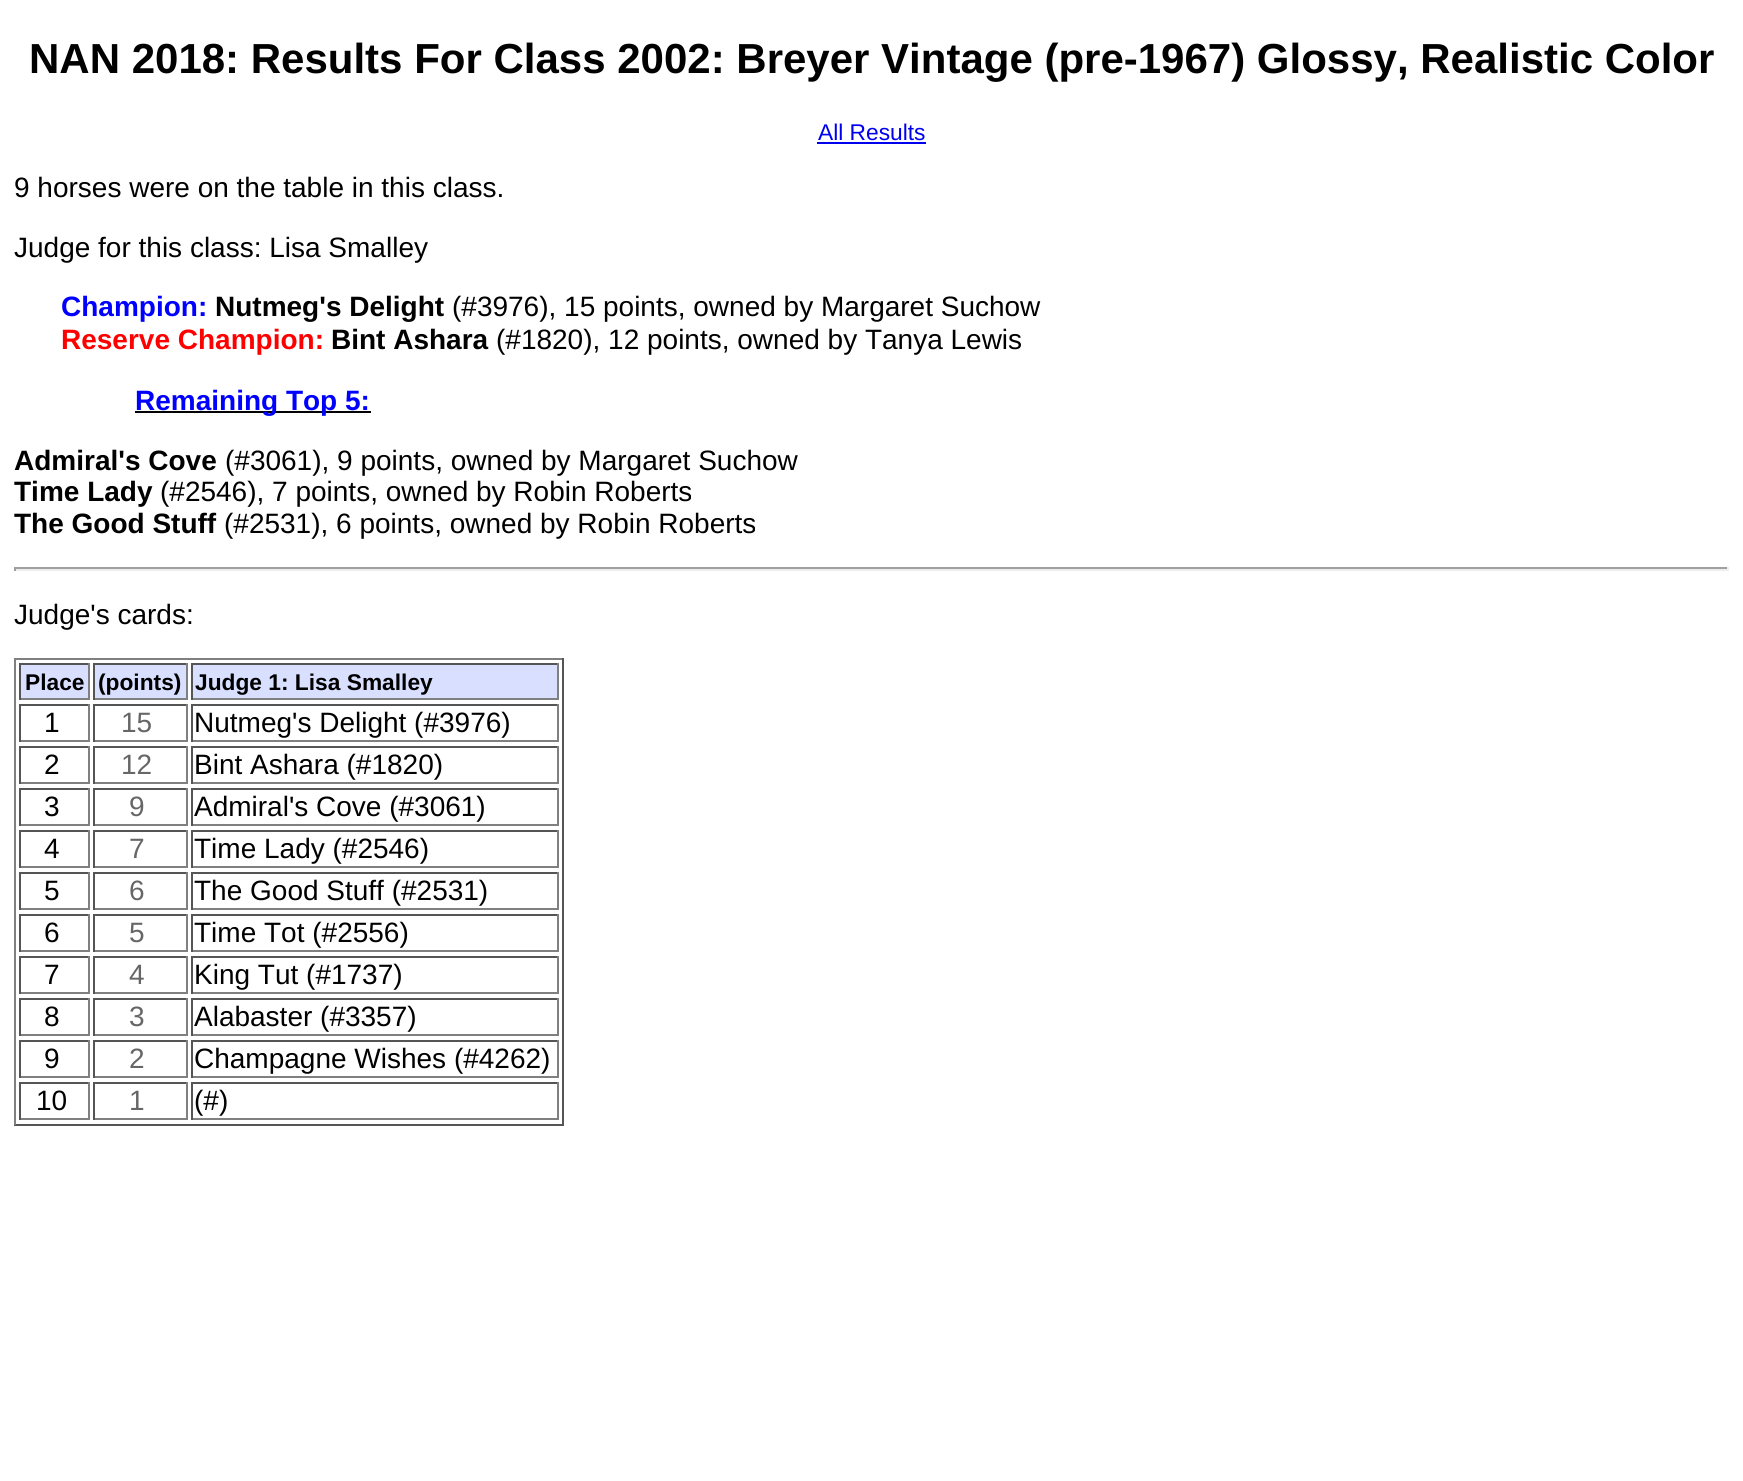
import math
import cairocffi as cairo

surface = cairo.ImageSurface(cairo.FORMAT_RGB24, 1743, 1481)
ctx = cairo.Context(surface)
options = cairo.FontOptions()
options.set_hint_metrics(cairo.HINT_METRICS_OFF)
options.set_hint_style(cairo.HINT_STYLE_NONE)
ctx.set_font_options(options)
ctx.set_miter_limit(4)


def rgb(r, g, b):
    ctx.set_source_rgb(r / 255, g / 255, b / 255)


def face(family, size, italic, bold):
    ctx.select_font_face(family, cairo.FONT_SLANT_ITALIC if italic else cairo.FONT_SLANT_NORMAL, cairo.FONT_WEIGHT_BOLD if bold else cairo.FONT_WEIGHT_NORMAL)
    ctx.set_font_size(size)


def label(x, y, s):
    ctx.move_to(x, y)
    ctx.show_text(s)


def rect(x, y, w, h):
    ctx.rectangle(x, y, w, h)
    ctx.fill()


rgb(255, 255, 255)
ctx.paint()
face('Liberation Sans', 42, 0, 1)
rgb(0, 0, 0)
label(29, 73, 'NAN 2018: Results For Class 2002: Breyer Vintage (pre-1967) Glossy, Realistic Color')
face('Liberation Sans', 22.75, 0, 0)
rgb(0, 0, 238)
label(818, 140, 'All Results')
rect(817, 142, 109, 2)
face('Liberation Sans', 28, 0, 0)
rgb(0, 0, 0)
label(14, 197, '9 horses were on the table in this class.')
label(14, 257, 'Judge for this class: Lisa Smalley')
face('Liberation Sans', 28, 0, 1)
rgb(0, 0, 255)
label(61, 316, 'Champion:')
rgb(0, 0, 0)
label(215, 316, 'Nutmeg\'s Delight')
face('Liberation Sans', 28, 0, 0)
label(452, 316, '(#3976), 15 points, owned by Margaret Suchow')
face('Liberation Sans', 28, 0, 1)
rgb(255, 0, 0)
label(61, 349, 'Reserve Champion:')
rgb(0, 0, 0)
label(331, 349, 'Bint Ashara')
face('Liberation Sans', 28, 0, 0)
label(496, 349, '(#1820), 12 points, owned by Tanya Lewis')
rect(135, 411, 236, 2)
face('Liberation Sans', 28, 0, 1)
rgb(0, 0, 255)
label(135, 410, 'Remaining Top 5:')
rgb(0, 0, 0)
label(14, 470, 'Admiral\'s Cove')
face('Liberation Sans', 28, 0, 0)
label(225, 470, '(#3061), 9 points, owned by Margaret Suchow')
face('Liberation Sans', 28, 0, 1)
label(14, 501, 'Time Lady')
face('Liberation Sans', 28, 0, 0)
label(160, 501, '(#2546), 7 points, owned by Robin Roberts')
face('Liberation Sans', 28, 0, 1)
label(14, 533, 'The Good Stuff')
face('Liberation Sans', 28, 0, 0)
label(224, 533, '(#2531), 6 points, owned by Robin Roberts')
rgb(159, 159, 159)
rect(14, 567, 1715, 2)
rgb(238, 238, 238)
rect(1727, 567, 2, 4)
rect(14, 569, 1715, 2)
rgb(159, 159, 159)
rect(14, 567, 2, 4)
rgb(0, 0, 0)
label(14, 624, 'Judge\'s cards:')
rgb(128, 128, 128)
rect(14, 658, 550, 2)
rgb(85, 85, 85)
rect(562, 658, 2, 467)
rect(14, 1124, 550, 2)
rgb(128, 128, 128)
rect(14, 658, 2, 467)
rgb(217, 223, 255)
rect(21, 665, 67, 33)
rgb(85, 85, 85)
rect(19, 663, 70, 2)
rgb(128, 128, 128)
rect(88, 663, 2, 37)
rect(19, 698, 70, 2)
rgb(85, 85, 85)
rect(19, 663, 2, 37)
face('Liberation Sans', 22.75, 0, 1)
rgb(0, 0, 0)
label(25, 690, 'Place')
rgb(217, 223, 255)
rect(95, 665, 91, 33)
rgb(85, 85, 85)
rect(93, 663, 94, 2)
rgb(128, 128, 128)
rect(186, 663, 2, 37)
rect(93, 698, 94, 2)
rgb(85, 85, 85)
rect(93, 663, 2, 37)
rgb(0, 0, 0)
label(98, 690, '(points)')
rgb(217, 223, 255)
rect(193, 665, 364, 33)
rgb(85, 85, 85)
rect(191, 663, 367, 2)
rgb(128, 128, 128)
rect(557, 663, 2, 37)
rect(191, 698, 367, 2)
rgb(85, 85, 85)
rect(191, 663, 2, 37)
rgb(0, 0, 0)
label(195, 690, 'Judge 1: Lisa Smalley')
rgb(85, 85, 85)
rect(19, 704, 70, 2)
rgb(128, 128, 128)
rect(88, 704, 2, 38)
rect(19, 740, 70, 2)
rgb(85, 85, 85)
rect(19, 704, 2, 38)
face('Liberation Sans', 28, 0, 0)
rgb(0, 0, 0)
label(44, 732, '1')
rgb(85, 85, 85)
rect(93, 704, 94, 2)
rgb(128, 128, 128)
rect(186, 704, 2, 38)
rect(93, 740, 94, 2)
rgb(85, 85, 85)
rect(93, 704, 2, 38)
rgb(102, 102, 102)
label(121, 732, '15')
rgb(85, 85, 85)
rect(191, 704, 367, 2)
rgb(128, 128, 128)
rect(557, 704, 2, 38)
rect(191, 740, 367, 2)
rgb(85, 85, 85)
rect(191, 704, 2, 38)
rgb(0, 0, 0)
label(194, 732, 'Nutmeg\'s Delight (#3976)')
rgb(85, 85, 85)
rect(19, 746, 70, 2)
rgb(128, 128, 128)
rect(88, 746, 2, 38)
rect(19, 782, 70, 2)
rgb(85, 85, 85)
rect(19, 746, 2, 38)
rgb(0, 0, 0)
label(44, 774, '2')
rgb(85, 85, 85)
rect(93, 746, 94, 2)
rgb(128, 128, 128)
rect(186, 746, 2, 38)
rect(93, 782, 94, 2)
rgb(85, 85, 85)
rect(93, 746, 2, 38)
rgb(102, 102, 102)
label(121, 774, '12')
rgb(85, 85, 85)
rect(191, 746, 367, 2)
rgb(128, 128, 128)
rect(557, 746, 2, 38)
rect(191, 782, 367, 2)
rgb(85, 85, 85)
rect(191, 746, 2, 38)
rgb(0, 0, 0)
label(194, 774, 'Bint Ashara (#1820)')
rgb(85, 85, 85)
rect(19, 788, 70, 2)
rgb(128, 128, 128)
rect(88, 788, 2, 38)
rect(19, 824, 70, 2)
rgb(85, 85, 85)
rect(19, 788, 2, 38)
rgb(0, 0, 0)
label(44, 816, '3')
rgb(85, 85, 85)
rect(93, 788, 94, 2)
rgb(128, 128, 128)
rect(186, 788, 2, 38)
rect(93, 824, 94, 2)
rgb(85, 85, 85)
rect(93, 788, 2, 38)
rgb(102, 102, 102)
label(129, 816, '9')
rgb(85, 85, 85)
rect(191, 788, 367, 2)
rgb(128, 128, 128)
rect(557, 788, 2, 38)
rect(191, 824, 367, 2)
rgb(85, 85, 85)
rect(191, 788, 2, 38)
rgb(0, 0, 0)
label(194, 816, 'Admiral\'s Cove (#3061)')
rgb(85, 85, 85)
rect(19, 830, 70, 2)
rgb(128, 128, 128)
rect(88, 830, 2, 38)
rect(19, 866, 70, 2)
rgb(85, 85, 85)
rect(19, 830, 2, 38)
rgb(0, 0, 0)
label(44, 858, '4')
rgb(85, 85, 85)
rect(93, 830, 94, 2)
rgb(128, 128, 128)
rect(186, 830, 2, 38)
rect(93, 866, 94, 2)
rgb(85, 85, 85)
rect(93, 830, 2, 38)
rgb(102, 102, 102)
label(129, 858, '7')
rgb(85, 85, 85)
rect(191, 830, 367, 2)
rgb(128, 128, 128)
rect(557, 830, 2, 38)
rect(191, 866, 367, 2)
rgb(85, 85, 85)
rect(191, 830, 2, 38)
rgb(0, 0, 0)
label(194, 858, 'Time Lady (#2546)')
rgb(85, 85, 85)
rect(19, 872, 70, 2)
rgb(128, 128, 128)
rect(88, 872, 2, 38)
rect(19, 908, 70, 2)
rgb(85, 85, 85)
rect(19, 872, 2, 38)
rgb(0, 0, 0)
label(44, 900, '5')
rgb(85, 85, 85)
rect(93, 872, 94, 2)
rgb(128, 128, 128)
rect(186, 872, 2, 38)
rect(93, 908, 94, 2)
rgb(85, 85, 85)
rect(93, 872, 2, 38)
rgb(102, 102, 102)
label(129, 900, '6')
rgb(85, 85, 85)
rect(191, 872, 367, 2)
rgb(128, 128, 128)
rect(557, 872, 2, 38)
rect(191, 908, 367, 2)
rgb(85, 85, 85)
rect(191, 872, 2, 38)
rgb(0, 0, 0)
label(194, 900, 'The Good Stuff (#2531)')
rgb(85, 85, 85)
rect(19, 914, 70, 2)
rgb(128, 128, 128)
rect(88, 914, 2, 38)
rect(19, 950, 70, 2)
rgb(85, 85, 85)
rect(19, 914, 2, 38)
rgb(0, 0, 0)
label(44, 942, '6')
rgb(85, 85, 85)
rect(93, 914, 94, 2)
rgb(128, 128, 128)
rect(186, 914, 2, 38)
rect(93, 950, 94, 2)
rgb(85, 85, 85)
rect(93, 914, 2, 38)
rgb(102, 102, 102)
label(129, 942, '5')
rgb(85, 85, 85)
rect(191, 914, 367, 2)
rgb(128, 128, 128)
rect(557, 914, 2, 38)
rect(191, 950, 367, 2)
rgb(85, 85, 85)
rect(191, 914, 2, 38)
rgb(0, 0, 0)
label(194, 942, 'Time Tot (#2556)')
rgb(85, 85, 85)
rect(19, 956, 70, 2)
rgb(128, 128, 128)
rect(88, 956, 2, 38)
rect(19, 992, 70, 2)
rgb(85, 85, 85)
rect(19, 956, 2, 38)
rgb(0, 0, 0)
label(44, 984, '7')
rgb(85, 85, 85)
rect(93, 956, 94, 2)
rgb(128, 128, 128)
rect(186, 956, 2, 38)
rect(93, 992, 94, 2)
rgb(85, 85, 85)
rect(93, 956, 2, 38)
rgb(102, 102, 102)
label(129, 984, '4')
rgb(85, 85, 85)
rect(191, 956, 367, 2)
rgb(128, 128, 128)
rect(557, 956, 2, 38)
rect(191, 992, 367, 2)
rgb(85, 85, 85)
rect(191, 956, 2, 38)
rgb(0, 0, 0)
label(194, 984, 'King Tut (#1737)')
rgb(85, 85, 85)
rect(19, 998, 70, 2)
rgb(128, 128, 128)
rect(88, 998, 2, 38)
rect(19, 1034, 70, 2)
rgb(85, 85, 85)
rect(19, 998, 2, 38)
rgb(0, 0, 0)
label(44, 1026, '8')
rgb(85, 85, 85)
rect(93, 998, 94, 2)
rgb(128, 128, 128)
rect(186, 998, 2, 38)
rect(93, 1034, 94, 2)
rgb(85, 85, 85)
rect(93, 998, 2, 38)
rgb(102, 102, 102)
label(129, 1026, '3')
rgb(85, 85, 85)
rect(191, 998, 367, 2)
rgb(128, 128, 128)
rect(557, 998, 2, 38)
rect(191, 1034, 367, 2)
rgb(85, 85, 85)
rect(191, 998, 2, 38)
rgb(0, 0, 0)
label(194, 1026, 'Alabaster (#3357)')
rgb(85, 85, 85)
rect(19, 1040, 70, 2)
rgb(128, 128, 128)
rect(88, 1040, 2, 38)
rect(19, 1076, 70, 2)
rgb(85, 85, 85)
rect(19, 1040, 2, 38)
rgb(0, 0, 0)
label(44, 1068, '9')
rgb(85, 85, 85)
rect(93, 1040, 94, 2)
rgb(128, 128, 128)
rect(186, 1040, 2, 38)
rect(93, 1076, 94, 2)
rgb(85, 85, 85)
rect(93, 1040, 2, 38)
rgb(102, 102, 102)
label(129, 1068, '2')
rgb(85, 85, 85)
rect(191, 1040, 367, 2)
rgb(128, 128, 128)
rect(557, 1040, 2, 38)
rect(191, 1076, 367, 2)
rgb(85, 85, 85)
rect(191, 1040, 2, 38)
rgb(0, 0, 0)
label(194, 1068, 'Champagne Wishes (#4262)')
rgb(85, 85, 85)
rect(19, 1082, 70, 2)
rgb(128, 128, 128)
rect(88, 1082, 2, 38)
rect(19, 1118, 70, 2)
rgb(85, 85, 85)
rect(19, 1082, 2, 38)
rgb(0, 0, 0)
label(36, 1110, '10')
rgb(85, 85, 85)
rect(93, 1082, 94, 2)
rgb(128, 128, 128)
rect(186, 1082, 2, 38)
rect(93, 1118, 94, 2)
rgb(85, 85, 85)
rect(93, 1082, 2, 38)
rgb(102, 102, 102)
label(129, 1110, '1')
rgb(85, 85, 85)
rect(191, 1082, 367, 2)
rgb(128, 128, 128)
rect(557, 1082, 2, 38)
rect(191, 1118, 367, 2)
rgb(85, 85, 85)
rect(191, 1082, 2, 38)
rgb(0, 0, 0)
label(194, 1110, '(#)')
surface.write_to_png('render.png')
